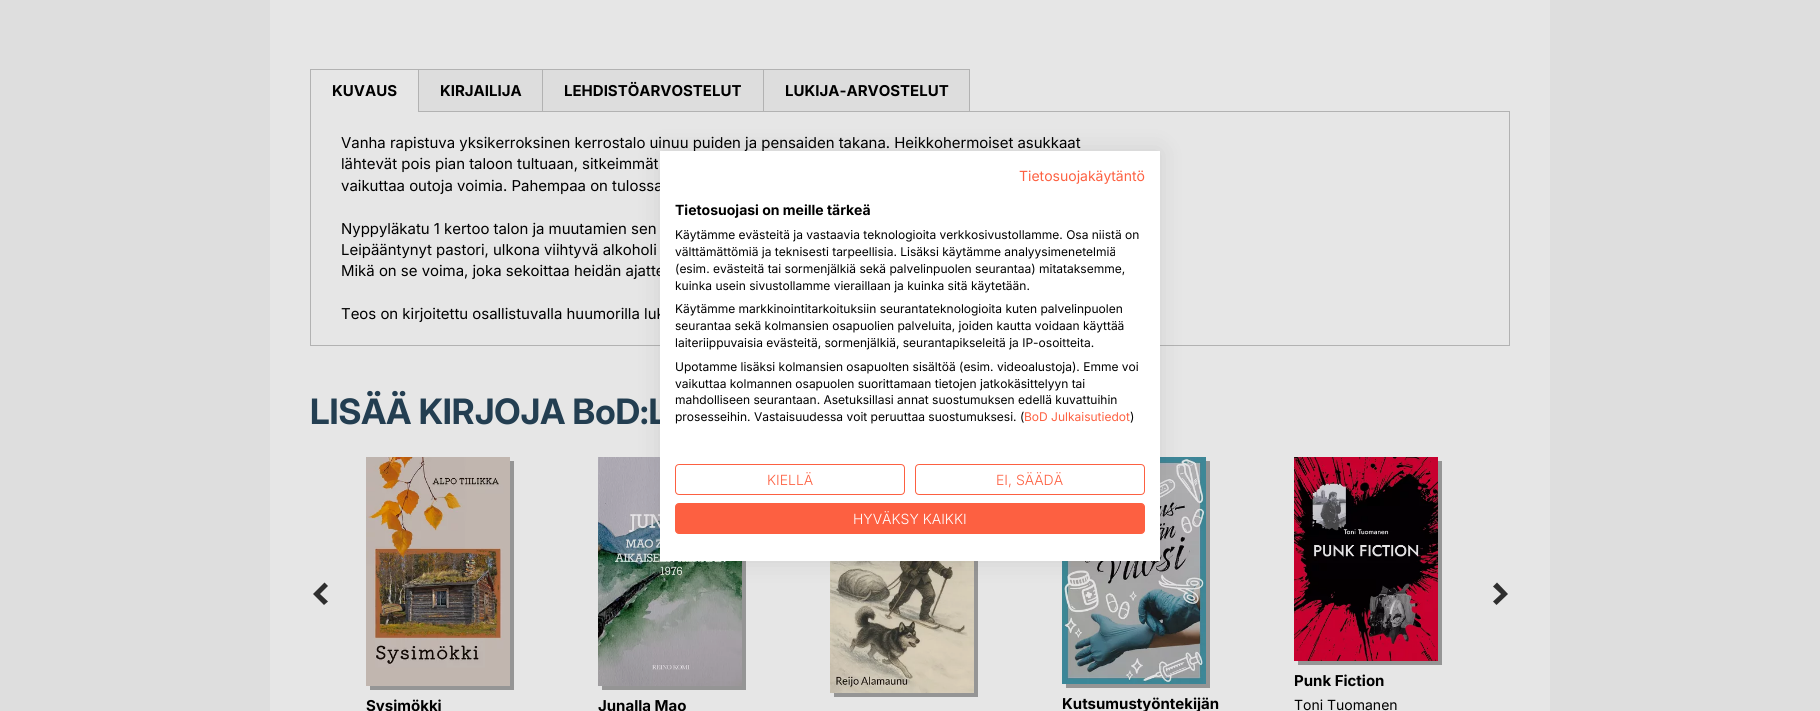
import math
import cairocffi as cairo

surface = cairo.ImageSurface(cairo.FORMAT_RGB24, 1820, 711)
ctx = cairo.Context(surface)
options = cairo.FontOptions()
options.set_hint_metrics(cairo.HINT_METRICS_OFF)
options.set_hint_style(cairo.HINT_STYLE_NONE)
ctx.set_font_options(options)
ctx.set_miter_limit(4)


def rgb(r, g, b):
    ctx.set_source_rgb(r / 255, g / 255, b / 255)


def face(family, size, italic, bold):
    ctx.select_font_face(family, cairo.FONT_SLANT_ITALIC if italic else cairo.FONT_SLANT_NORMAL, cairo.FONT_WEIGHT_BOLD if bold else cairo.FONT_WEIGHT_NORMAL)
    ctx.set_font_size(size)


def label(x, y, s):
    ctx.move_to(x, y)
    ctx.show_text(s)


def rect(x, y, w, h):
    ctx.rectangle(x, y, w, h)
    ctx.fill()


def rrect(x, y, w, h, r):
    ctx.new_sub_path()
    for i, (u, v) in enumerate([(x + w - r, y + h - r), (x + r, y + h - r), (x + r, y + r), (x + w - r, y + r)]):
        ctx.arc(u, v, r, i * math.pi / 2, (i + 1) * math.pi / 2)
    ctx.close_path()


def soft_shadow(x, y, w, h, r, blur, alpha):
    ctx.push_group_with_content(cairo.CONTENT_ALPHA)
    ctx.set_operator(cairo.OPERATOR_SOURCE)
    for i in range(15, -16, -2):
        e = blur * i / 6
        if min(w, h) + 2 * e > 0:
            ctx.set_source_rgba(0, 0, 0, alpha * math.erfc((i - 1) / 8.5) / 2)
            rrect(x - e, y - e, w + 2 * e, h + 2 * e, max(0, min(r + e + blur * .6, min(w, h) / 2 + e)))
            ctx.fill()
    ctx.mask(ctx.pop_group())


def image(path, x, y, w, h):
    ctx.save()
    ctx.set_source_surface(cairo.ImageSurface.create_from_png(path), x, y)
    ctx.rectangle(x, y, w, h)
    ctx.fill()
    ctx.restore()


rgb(222, 222, 222)
ctx.paint()
rgb(230, 230, 230)
rect(270, 0, 1280, 711)
rgb(178, 178, 178)
rect(310, 69, 453, 1)
rect(310, 69, 1, 44)
ctx.rectangle(310.5, 111.5, 1199, 234)
ctx.set_line_width(1)
ctx.stroke()
rgb(230, 230, 230)
rect(311, 111, 107, 1)
face('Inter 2', 15, 0, 1)
rgb(0, 0, 0)
label(332, 96, 'KUVAUS')
rgb(178, 178, 178)
rect(418, 69, 1, 43)
rgb(221, 221, 221)
rect(419, 70, 123, 41)
rgb(0, 0, 0)
label(440, 96, 'KIRJAILIJA')
rgb(178, 178, 178)
rect(542, 69, 1, 43)
rgb(221, 221, 221)
rect(543, 70, 220, 41)
rgb(0, 0, 0)
label(564, 96, 'LEHDISTÖARVOSTELUT')
ctx.rectangle(763.5, 69.5, 206, 42)
rgb(178, 178, 178)
ctx.stroke()
rgb(221, 221, 221)
rect(764, 70, 205, 41)
rgb(0, 0, 0)
label(785, 96, 'LUKIJA-ARVOSTELUT')
face('Inter 2', 15, 0, 0)
label(341, 148, 'Vanha rapistuva yksikerroksinen kerrostalo uinuu puiden ja pensaiden takana. Heikkohermoiset asukkaat')
label(341, 169, 'lähtevät pois pian taloon tultuaan, sitkeimmät')
label(341, 191, 'vaikuttaa outoja voimia. Pahempaa on tulossa')
label(341, 234, 'Nyppyläkatu 1 kertoo talon ja muutamien sen')
label(341, 255, 'Leipääntynyt pastori, ulkona viihtyvä alkoholi')
label(341, 276, 'Mikä on se voima, joka sekoittaa heidän ajatte')
label(341, 319, 'Teos on kirjoitettu osallistuvalla huumorilla luk')
face('Inter', 35, 0, 1)
rgb(35, 62, 81)
label(310, 424, 'LISÄÄ KIRJOJA BoD:L')
rgb(46, 46, 46)
ctx.new_path()
ctx.move_to(320, 594)
ctx.line_to(328, 586)
ctx.line_to(324.5, 582.5)
ctx.line_to(313, 594)
ctx.line_to(324, 605)
ctx.line_to(328, 601.5)
ctx.close_path()
ctx.fill()
ctx.new_path()
ctx.move_to(1501, 594)
ctx.line_to(1493, 601.5)
ctx.line_to(1496.5, 605)
ctx.line_to(1508, 594)
ctx.line_to(1497, 582.5)
ctx.line_to(1493, 586.5)
ctx.close_path()
ctx.fill()
rgb(149, 149, 149)
ctx.new_path()
ctx.move_to(370, 686)
ctx.line_to(370, 690)
ctx.line_to(514, 690)
ctx.line_to(514, 461)
ctx.line_to(510, 461)
ctx.line_to(510, 686)
ctx.close_path()
ctx.fill()
image('image0.png', 366, 457, 144, 229)
face('Inter 2', 15, 0, 1)
rgb(0, 0, 0)
label(366, 711, 'Sysimökki')
rgb(149, 149, 149)
ctx.new_path()
ctx.move_to(602, 686)
ctx.line_to(602, 690)
ctx.line_to(746, 690)
ctx.line_to(746, 461)
ctx.line_to(742, 461)
ctx.line_to(742, 686)
ctx.close_path()
ctx.fill()
image('image1.png', 598, 457, 144, 229)
rgb(0, 0, 0)
label(598, 711, 'Junalla Mao')
rgb(149, 149, 149)
ctx.new_path()
ctx.move_to(834, 693)
ctx.line_to(834, 697)
ctx.line_to(978, 697)
ctx.line_to(978, 461)
ctx.line_to(974, 461)
ctx.line_to(974, 693)
ctx.close_path()
ctx.fill()
image('image2.png', 830, 561, 144, 132)
ctx.new_path()
ctx.move_to(1066, 684)
ctx.line_to(1066, 688)
ctx.line_to(1210, 688)
ctx.line_to(1210, 461)
ctx.line_to(1206, 461)
ctx.line_to(1206, 684)
ctx.close_path()
ctx.fill()
image('image3.png', 1062, 457, 144, 227)
rgb(0, 0, 0)
label(1062, 709, 'Kutsumustyöntekijän')
rgb(149, 149, 149)
ctx.new_path()
ctx.move_to(1298, 661)
ctx.line_to(1298, 665)
ctx.line_to(1442, 665)
ctx.line_to(1442, 461)
ctx.line_to(1438, 461)
ctx.line_to(1438, 661)
ctx.close_path()
ctx.fill()
image('image4.png', 1294, 457, 144, 204)
rgb(0, 0, 0)
label(1294, 686, 'Punk Fiction')
face('Inter', 14, 0, 0)
label(1294, 710, 'Toni Tuomanen')
rgb(0, 0, 0)
soft_shadow(660, 151, 500, 410, 0, 12, 0.1)
rgb(255, 255, 255)
rect(660, 151, 500, 410)
rgb(253, 96, 65)
label(1019, 181, 'Tietosuojakäytäntö')
face('Inter 2', 14, 0, 1)
rgb(0, 0, 0)
label(675, 215, 'Tietosuojasi on meille tärkeä')
face('Inter', 12, 0, 0)
label(675, 239, 'Käytämme evästeitä ja vastaavia teknologioita verkkosivustollamme. Osa niistä on')
label(675, 256, 'välttämättömiä ja teknisesti tarpeellisia. Lisäksi käytämme analyysimenetelmiä')
label(675, 273, '(esim. evästeitä tai sormenjälkiä sekä palvelinpuolen seurantaa) mitataksemme,')
label(675, 290, 'kuinka usein sivustollamme vieraillaan ja kuinka sitä käytetään.')
label(675, 313, 'Käytämme markkinointitarkoituksiin seurantateknologioita kuten palvelinpuolen')
label(675, 330, 'seurantaa sekä kolmansien osapuolien palveluita, joiden kautta voidaan käyttää')
label(675, 347, 'laiteriippuvaisia evästeitä, sormenjälkiä, seurantapikseleitä ja IP-osoitteita.')
label(675, 371, 'Upotamme lisäksi kolmansien osapuolten sisältöä (esim. videoalustoja). Emme voi')
label(675, 388, 'vaikuttaa kolmannen osapuolen suorittamaan tietojen jatkokäsittelyyn tai')
label(675, 404, 'mahdolliseen seurantaan. Asetuksillasi annat suostumuksen edellä kuvattuihin')
label(675, 421, 'prosesseihin. Vastaisuudessa voit peruuttaa suostumuksesi. (')
rgb(253, 96, 65)
label(1024, 421, 'BoD Julkaisutiedot')
rgb(0, 0, 0)
label(1130, 421, ')')
rrect(675.5, 464.5, 229, 30, 3.5)
rgb(253, 96, 65)
ctx.stroke()
face('Inter Light', 14, 0, 0)
label(767, 485, 'KIELLÄ')
rrect(915.5, 464.5, 229, 30, 3.5)
ctx.stroke()
label(996, 485, 'EI, SÄÄDÄ')
rrect(675.5, 503.5, 469, 30, 3.5)
ctx.fill_preserve()
ctx.stroke()
rgb(255, 255, 255)
label(853, 524, 'HYVÄKSY KAIKKI')
surface.write_to_png('render.png')
